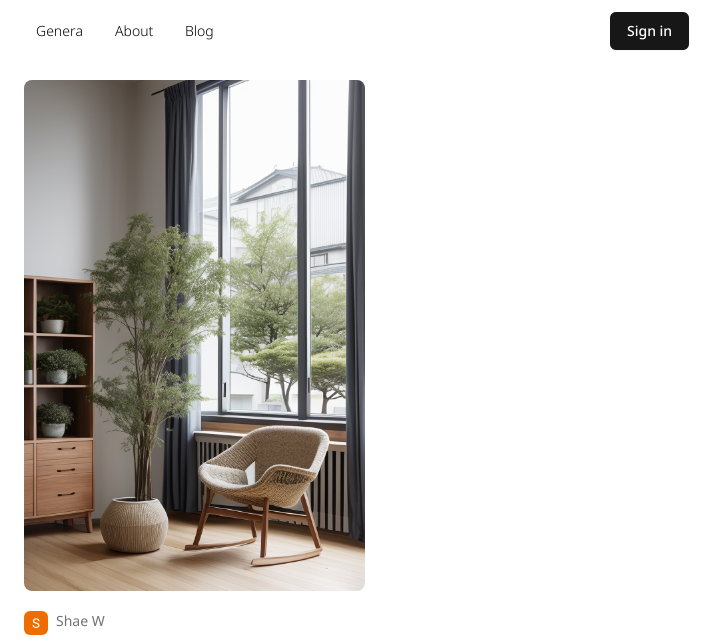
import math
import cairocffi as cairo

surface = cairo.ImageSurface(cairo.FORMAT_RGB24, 713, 639)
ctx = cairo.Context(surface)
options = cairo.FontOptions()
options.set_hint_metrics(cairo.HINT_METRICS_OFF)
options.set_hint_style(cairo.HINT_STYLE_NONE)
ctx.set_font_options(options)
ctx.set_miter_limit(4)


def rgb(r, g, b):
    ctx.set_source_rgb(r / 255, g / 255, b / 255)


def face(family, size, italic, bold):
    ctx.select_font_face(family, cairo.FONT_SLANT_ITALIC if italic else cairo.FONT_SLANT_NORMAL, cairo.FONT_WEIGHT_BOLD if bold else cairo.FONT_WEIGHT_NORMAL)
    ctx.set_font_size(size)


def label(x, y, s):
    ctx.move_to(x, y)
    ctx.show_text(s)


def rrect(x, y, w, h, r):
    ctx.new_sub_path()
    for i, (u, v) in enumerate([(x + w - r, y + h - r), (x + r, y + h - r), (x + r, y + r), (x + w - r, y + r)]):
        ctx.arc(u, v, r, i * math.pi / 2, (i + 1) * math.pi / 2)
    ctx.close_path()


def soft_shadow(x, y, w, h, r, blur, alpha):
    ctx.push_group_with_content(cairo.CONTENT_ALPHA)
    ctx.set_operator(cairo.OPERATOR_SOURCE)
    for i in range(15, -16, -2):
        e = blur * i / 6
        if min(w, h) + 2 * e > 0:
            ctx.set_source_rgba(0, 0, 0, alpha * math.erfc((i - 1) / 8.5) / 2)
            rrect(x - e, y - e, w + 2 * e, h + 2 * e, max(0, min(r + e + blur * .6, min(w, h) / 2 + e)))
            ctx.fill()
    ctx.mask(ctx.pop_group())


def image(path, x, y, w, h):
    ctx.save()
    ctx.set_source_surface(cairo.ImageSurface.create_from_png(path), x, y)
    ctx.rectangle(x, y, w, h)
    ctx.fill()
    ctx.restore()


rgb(255, 255, 255)
ctx.paint()
face('Noto Sans Light', 14, 0, 0)
rgb(0, 0, 0)
label(36, 36, 'Genera')
label(115, 36, 'About')
label(185, 36, 'Blog')
rgb(0, 0, 0)
soft_shadow(610, 13, 79, 38, 6, 1, 0.05)
rgb(23, 23, 23)
rrect(610, 12, 79, 38, 6)
ctx.fill()
face('Noto Sans Medium', 14, 0, 0)
rgb(255, 255, 255)
label(627, 36, 'Sign in')
image('image0.png', 24, 80, 341, 511)
image('image1.png', 24, 611, 24, 24)
face('Noto Sans', 14, 0, 0)
rgb(115, 115, 115)
label(56, 626, 'Shae W')
surface.write_to_png('render.png')
